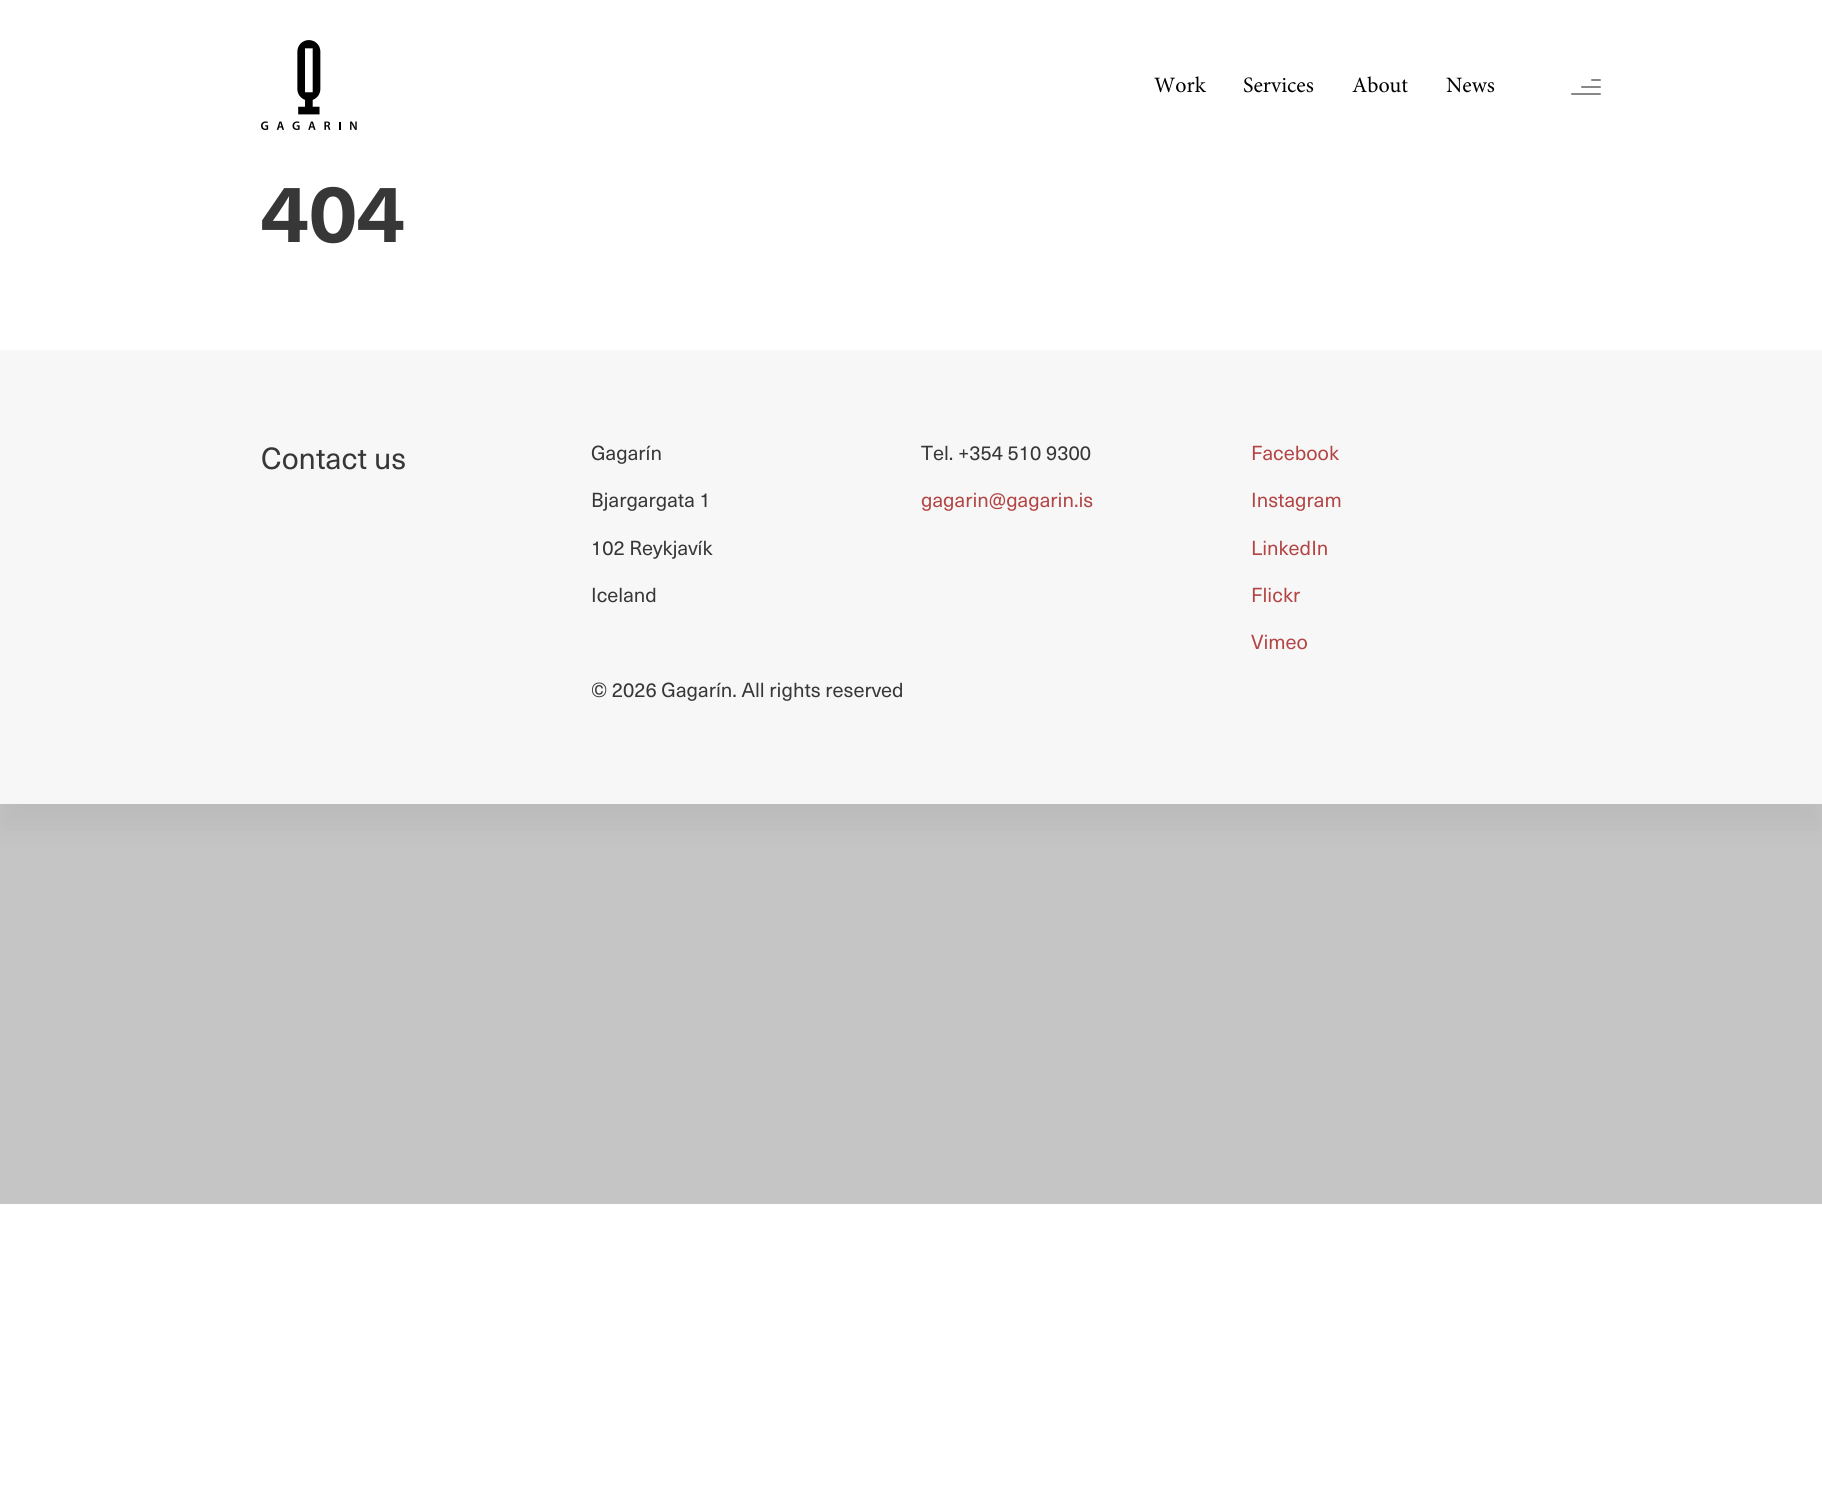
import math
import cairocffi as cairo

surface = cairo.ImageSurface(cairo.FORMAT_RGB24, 1822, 1510)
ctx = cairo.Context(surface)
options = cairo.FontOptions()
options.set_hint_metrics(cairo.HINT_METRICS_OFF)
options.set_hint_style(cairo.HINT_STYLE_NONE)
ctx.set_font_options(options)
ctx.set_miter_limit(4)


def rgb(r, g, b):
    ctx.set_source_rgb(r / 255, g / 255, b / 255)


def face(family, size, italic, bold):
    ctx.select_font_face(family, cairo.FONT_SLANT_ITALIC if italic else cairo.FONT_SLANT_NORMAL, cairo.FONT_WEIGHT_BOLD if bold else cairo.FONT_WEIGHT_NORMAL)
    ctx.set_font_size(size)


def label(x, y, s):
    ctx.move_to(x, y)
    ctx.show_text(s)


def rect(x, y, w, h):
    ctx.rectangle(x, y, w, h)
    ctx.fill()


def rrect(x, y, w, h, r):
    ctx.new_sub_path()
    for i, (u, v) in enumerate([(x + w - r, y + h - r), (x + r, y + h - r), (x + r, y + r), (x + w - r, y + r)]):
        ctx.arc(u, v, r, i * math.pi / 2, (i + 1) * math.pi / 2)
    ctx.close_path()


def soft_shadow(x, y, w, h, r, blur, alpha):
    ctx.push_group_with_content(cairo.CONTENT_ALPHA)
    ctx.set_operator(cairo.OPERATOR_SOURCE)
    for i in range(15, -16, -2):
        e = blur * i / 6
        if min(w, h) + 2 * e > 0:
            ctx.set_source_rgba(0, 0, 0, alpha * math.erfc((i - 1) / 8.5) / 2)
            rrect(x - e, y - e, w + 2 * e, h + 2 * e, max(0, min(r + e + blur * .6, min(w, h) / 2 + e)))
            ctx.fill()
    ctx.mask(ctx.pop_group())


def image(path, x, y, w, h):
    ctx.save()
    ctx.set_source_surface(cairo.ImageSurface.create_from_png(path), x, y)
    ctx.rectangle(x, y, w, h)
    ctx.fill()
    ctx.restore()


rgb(255, 255, 255)
ctx.paint()
image('image0.png', 261, 40, 96, 90)
face('Minion', 22, 0, 0)
rgb(0, 0, 0)
label(1154, 92, 'Work')
label(1243, 92, 'Services')
label(1352, 92, 'About')
label(1446, 92, 'News')
rgb(136, 136, 136)
rrect(1581, 86, 20, 2, 1)
ctx.fill()
rrect(1591, 79, 10, 2, 1)
ctx.fill()
rrect(1571, 93, 30, 2, 1)
ctx.fill()
face('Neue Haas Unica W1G', 80, 0, 1)
rgb(55, 55, 55)
label(261, 242, '404')
rgb(197, 197, 197)
rect(0, 804, 1822, 400)
rgb(0, 0, 0)
soft_shadow(0, 375, 1822, 454, 0, 12.5, 0.05)
rgb(247, 247, 247)
rect(0, 350, 1822, 454)
face('Neue Haas Unica W1G', 30, 0, 0)
rgb(55, 55, 55)
label(261, 469, 'Contact us')
face('Neue Haas Unica W1G', 20, 0, 0)
label(591, 460, 'Gagarín')
label(591, 507, 'Bjargargata 1')
label(591, 555, '102 Reykjavík')
label(591, 602, 'Iceland')
label(921, 460, 'Tel. +354 510 9300')
rgb(179, 69, 69)
label(921, 507, 'gagarin@gagarin.is')
label(1251, 460, 'Facebook')
label(1251, 507, 'Instagram')
label(1251, 555, 'LinkedIn')
label(1251, 602, 'Flickr')
label(1251, 649, 'Vimeo')
rgb(55, 55, 55)
label(591, 697, '© 2026 Gagarín. All rights reserved')
surface.write_to_png('render.png')
